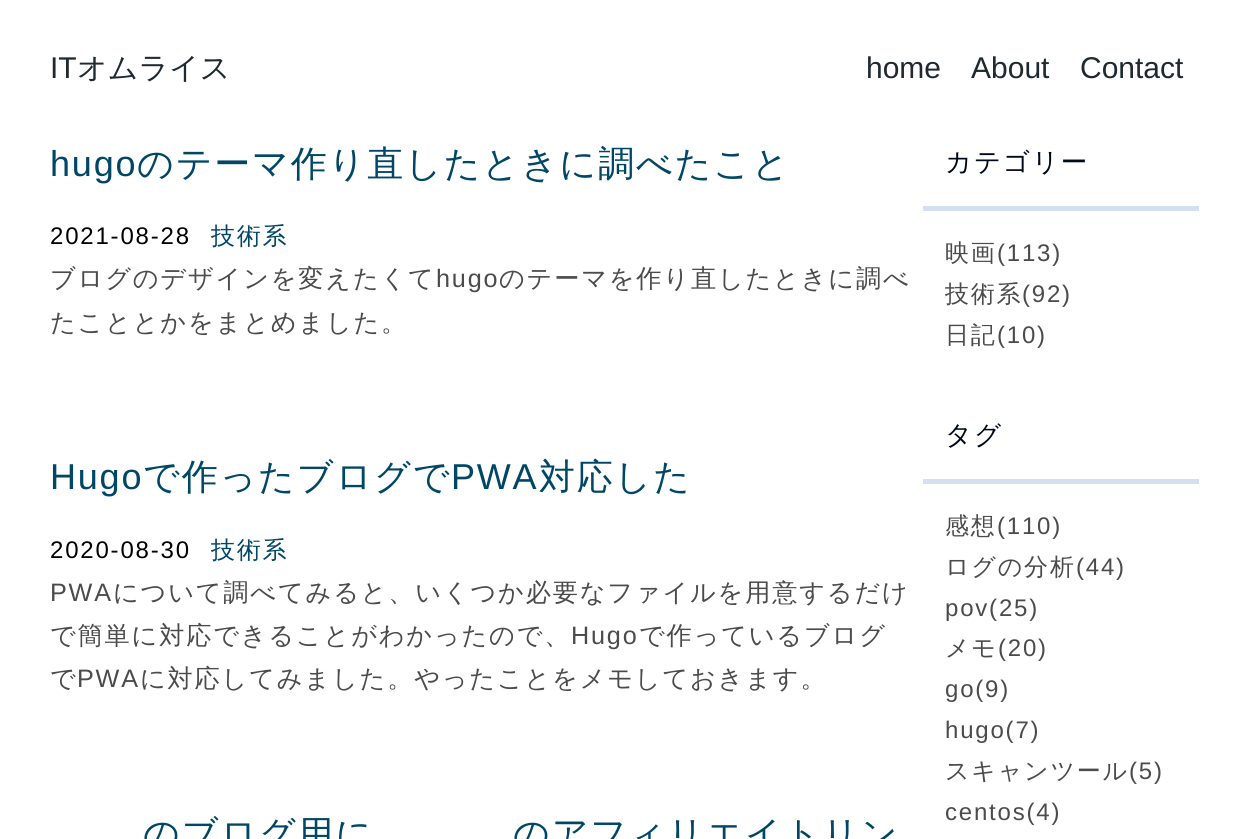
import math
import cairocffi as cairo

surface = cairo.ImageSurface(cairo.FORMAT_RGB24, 1248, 839)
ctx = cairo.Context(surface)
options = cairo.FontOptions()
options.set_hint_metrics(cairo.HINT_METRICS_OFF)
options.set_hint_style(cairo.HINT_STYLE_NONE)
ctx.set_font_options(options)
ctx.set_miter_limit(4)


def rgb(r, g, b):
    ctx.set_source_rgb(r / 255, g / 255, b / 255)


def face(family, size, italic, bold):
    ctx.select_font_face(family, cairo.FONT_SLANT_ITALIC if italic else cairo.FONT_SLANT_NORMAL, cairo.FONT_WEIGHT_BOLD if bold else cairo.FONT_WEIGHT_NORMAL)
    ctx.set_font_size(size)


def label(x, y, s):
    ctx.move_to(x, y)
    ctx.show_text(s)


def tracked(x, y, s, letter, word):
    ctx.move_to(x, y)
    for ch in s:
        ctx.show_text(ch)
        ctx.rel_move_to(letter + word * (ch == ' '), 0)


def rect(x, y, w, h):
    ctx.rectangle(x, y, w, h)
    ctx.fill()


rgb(255, 255, 255)
ctx.paint()
face('Liberation Sans', 30, 0, 0)
rgb(31, 41, 48)
label(50, 78, 'IT')
face('WenQuanYi Zen Hei Medium', 30, 0, 0)
label(77, 78, 'オムライス')
face('Liberation Sans', 30, 0, 0)
label(866, 78, 'home')
label(971, 78, 'About')
label(1080, 78, 'Contact')
face('Liberation Sans', 36, 0, 0)
rgb(0, 70, 102)
tracked(50, 176, 'hugo', 1.8, 0)
face('WenQuanYi Zen Hei Medium', 36, 0, 0)
tracked(137, 176, 'のテーマ作り直したときに調べたこと', 1.8, 0)
face('Liberation Sans', 24, 0, 0)
rgb(0, 0, 0)
tracked(50, 244, '2021-08-28', 1.8, 0)
face('WenQuanYi Zen Hei Medium', 24, 0, 0)
rgb(0, 70, 102)
tracked(211, 244, '技術系', 1.8, 0)
face('WenQuanYi Zen Hei Medium', 25.2, 0, 0)
rgb(75, 75, 75)
tracked(50, 287, 'ブログのデザインを変えたくて', 1.8, 0)
face('Liberation Sans', 25.2, 0, 0)
tracked(436, 287, 'hugo', 1.8, 0)
face('WenQuanYi Zen Hei Medium', 25.2, 0, 0)
tracked(499, 287, 'のテーマを作り直したときに調べ', 1.8, 0)
tracked(50, 331, 'たこととかをまとめました。', 1.8, 0)
face('Liberation Sans', 36, 0, 0)
rgb(0, 70, 102)
tracked(50, 489, 'Hugo', 1.8, 0)
face('WenQuanYi Zen Hei Medium', 36, 0, 0)
tracked(143, 489, 'で作ったブログで', 1.8, 0)
face('Liberation Sans', 36, 0, 0)
tracked(451, 489, 'PWA', 1.8, 0)
face('WenQuanYi Zen Hei Medium', 36, 0, 0)
tracked(539, 489, '対応した', 1.8, 0)
face('Liberation Sans', 24, 0, 0)
rgb(0, 0, 0)
tracked(50, 558, '2020-08-30', 1.8, 0)
face('WenQuanYi Zen Hei Medium', 24, 0, 0)
rgb(0, 70, 102)
tracked(211, 558, '技術系', 1.8, 0)
face('Liberation Sans', 25.2, 0, 0)
rgb(75, 75, 75)
tracked(50, 601, 'PWA', 1.8, 0)
face('WenQuanYi Zen Hei Medium', 25.2, 0, 0)
tracked(113, 601, 'について調べてみると、いくつか必要なファイルを用意するだけ', 1.8, 0)
tracked(50, 644, 'で簡単に対応できることがわかったので、', 1.8, 0)
face('Liberation Sans', 25.2, 0, 0)
tracked(571, 644, 'Hugo', 1.8, 0)
face('WenQuanYi Zen Hei Medium', 25.2, 0, 0)
tracked(639, 644, 'で作っているブログ', 1.8, 0)
tracked(50, 687, 'で', 1.8, 0)
face('Liberation Sans', 25.2, 0, 0)
tracked(77, 687, 'PWA', 1.8, 0)
face('WenQuanYi Zen Hei Medium', 25.2, 0, 0)
tracked(140, 687, 'に対応してみました。やったことをメモしておきます。', 1.8, 0)
face('WenQuanYi Zen Hei Medium', 36, 0, 0)
rgb(0, 70, 102)
tracked(143, 846, 'のブログ用に', 1.8, 0)
tracked(513, 846, 'のアフィリエイトリン', 1.8, 0)
rgb(211, 224, 240)
rect(923, 206, 276, 5)
face('WenQuanYi Zen Hei Medium', 26.5, 0, 0)
rgb(0, 9, 26)
tracked(945, 171, 'カテゴリー', 1.8, 0)
face('WenQuanYi Zen Hei Medium', 24, 0, 0)
rgb(75, 75, 75)
tracked(945, 261, '映画', 1.8, 0)
face('Liberation Sans', 24, 0, 0)
tracked(997, 261, '(113)', 1.8, 0)
face('WenQuanYi Zen Hei Medium', 24, 0, 0)
tracked(945, 302, '技術系', 1.8, 0)
face('Liberation Sans', 24, 0, 0)
tracked(1022, 302, '(92)', 1.8, 0)
face('WenQuanYi Zen Hei Medium', 24, 0, 0)
tracked(945, 343, '日記', 1.8, 0)
face('Liberation Sans', 24, 0, 0)
tracked(997, 343, '(10)', 1.8, 0)
rgb(211, 224, 240)
rect(923, 479, 276, 5)
face('WenQuanYi Zen Hei Medium', 26.5, 0, 0)
rgb(0, 9, 26)
tracked(945, 444, 'タグ', 1.8, 0)
face('WenQuanYi Zen Hei Medium', 24, 0, 0)
rgb(75, 75, 75)
tracked(945, 534, '感想', 1.8, 0)
face('Liberation Sans', 24, 0, 0)
tracked(997, 534, '(110)', 1.8, 0)
face('WenQuanYi Zen Hei Medium', 24, 0, 0)
tracked(945, 575, 'ログの分析', 1.8, 0)
face('Liberation Sans', 24, 0, 0)
tracked(1076, 575, '(44)', 1.8, 0)
tracked(945, 616, 'pov(25)', 1.8, 0)
face('WenQuanYi Zen Hei Medium', 24, 0, 0)
tracked(945, 656, 'メモ', 1.8, 0)
face('Liberation Sans', 24, 0, 0)
tracked(998, 656, '(20)', 1.8, 0)
tracked(945, 697, 'go(9)', 1.8, 0)
tracked(945, 738, 'hugo(7)', 1.8, 0)
face('WenQuanYi Zen Hei Medium', 24, 0, 0)
tracked(945, 779, 'スキャンツール', 1.8, 0)
face('Liberation Sans', 24, 0, 0)
tracked(1129, 779, '(5)', 1.8, 0)
tracked(945, 820, 'centos(4)', 1.8, 0)
surface.write_to_png('render.png')
